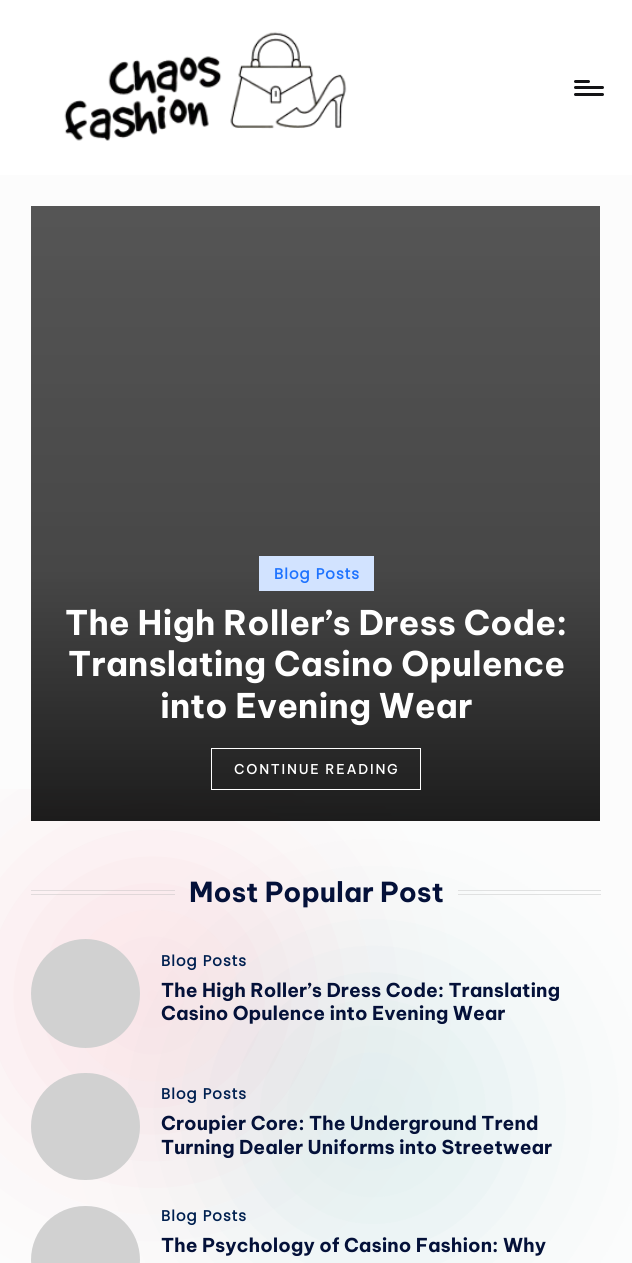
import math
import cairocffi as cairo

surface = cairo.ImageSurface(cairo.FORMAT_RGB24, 632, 1263)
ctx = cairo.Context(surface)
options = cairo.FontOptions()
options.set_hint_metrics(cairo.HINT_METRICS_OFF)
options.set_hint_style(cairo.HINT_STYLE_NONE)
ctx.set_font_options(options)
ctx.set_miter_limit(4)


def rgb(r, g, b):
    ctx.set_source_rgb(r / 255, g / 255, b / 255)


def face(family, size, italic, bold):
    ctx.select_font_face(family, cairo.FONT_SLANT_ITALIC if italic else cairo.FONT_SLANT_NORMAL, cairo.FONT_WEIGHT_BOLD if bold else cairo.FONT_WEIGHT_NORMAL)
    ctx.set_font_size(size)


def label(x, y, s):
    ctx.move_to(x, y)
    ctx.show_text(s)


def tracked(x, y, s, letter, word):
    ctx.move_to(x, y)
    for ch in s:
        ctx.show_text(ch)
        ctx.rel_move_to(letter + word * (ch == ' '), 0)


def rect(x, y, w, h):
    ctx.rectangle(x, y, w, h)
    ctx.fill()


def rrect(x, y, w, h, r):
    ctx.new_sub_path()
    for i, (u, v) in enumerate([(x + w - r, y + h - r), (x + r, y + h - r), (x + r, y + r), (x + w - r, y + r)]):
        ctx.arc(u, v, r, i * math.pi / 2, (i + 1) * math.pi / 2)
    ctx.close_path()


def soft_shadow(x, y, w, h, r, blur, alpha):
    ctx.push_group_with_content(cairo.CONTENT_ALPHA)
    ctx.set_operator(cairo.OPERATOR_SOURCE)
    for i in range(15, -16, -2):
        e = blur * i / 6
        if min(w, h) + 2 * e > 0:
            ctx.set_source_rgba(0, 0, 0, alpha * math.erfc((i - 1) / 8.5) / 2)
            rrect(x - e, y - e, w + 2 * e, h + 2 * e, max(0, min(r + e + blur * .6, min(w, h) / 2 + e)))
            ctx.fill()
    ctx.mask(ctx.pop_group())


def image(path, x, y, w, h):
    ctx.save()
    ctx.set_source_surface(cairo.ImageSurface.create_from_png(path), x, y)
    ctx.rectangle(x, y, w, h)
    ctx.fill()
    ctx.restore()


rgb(252, 252, 252)
ctx.paint()
rgb(255, 255, 255)
rect(0, 0, 632, 175)
image('image0.png', 64, 31, 283, 110)
rgb(19, 19, 21)
rrect(574, 86, 30, 3, 1.5)
ctx.fill()
rrect(574, 80, 16, 3, 1.5)
ctx.fill()
rrect(574, 93, 30, 3, 1.5)
ctx.fill()
ctx.save()
ctx.rectangle(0, 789, 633, 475)
ctx.clip()
rgb(251, 230, 233)
soft_shadow(0, 843, 305, 305, 152.5, 80, 1)
ctx.restore()
rgb(4, 134, 139)
soft_shadow(220, 959, 306, 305, 152.5, 80, 0.1)
ctx.set_source_rgba(0.125, 0.125, 0.125, 0.5)
rect(31, 206, 569, 615)
gradient = cairo.LinearGradient(316, 206, 316, 821)
gradient.add_color_stop_rgba(0, 0, 0, 0, 0.4)
gradient.add_color_stop_rgba(0.59, 0, 0, 0, 0.5)
gradient.add_color_stop_rgba(1, 0, 0, 0, 0.8)
ctx.set_source(gradient)
rect(31, 206, 569, 615)
rgb(210, 227, 255)
rect(259, 556, 115, 35)
face('Poppins', 15, 0, 1)
rgb(30, 115, 255)
tracked(274, 579, 'Blog Posts', 1, 0)
face('Be Vietnam Pro', 33.9, 0, 1)
rgb(255, 255, 255)
label(65, 635, 'The High Roller’s Dress Code:')
label(68, 676, 'Translating Casino Opulence')
label(160, 718, 'into Evening Wear')
ctx.rectangle(211.5, 748.5, 209, 41)
ctx.set_line_width(1)
ctx.stroke()
face('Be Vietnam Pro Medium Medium', 13.5, 0, 0)
tracked(234, 774, 'CONTINUE READING', 1.75, 0)
ctx.set_source_rgba(0.725, 0.725, 0.725, 0.4)
rect(31, 890, 144, 1)
rect(31, 894, 144, 1)
face('Be Vietnam Pro', 27.5, 0, 1)
rgb(4, 17, 57)
label(189, 902, 'Most Popular Post')
rgb(224, 225, 225)
rect(458, 890, 143, 1)
rect(458, 894, 143, 1)
rgb(209, 209, 209)
ctx.new_path()
ctx.arc(85.5, 993.5, 54.5, 0, 2 * math.pi)
ctx.fill()
face('Poppins', 15, 0, 1)
rgb(0, 32, 80)
tracked(161, 966, 'Blog Posts', 1, 0)
face('Be Vietnam Pro', 19.1, 0, 1)
rgb(4, 17, 57)
label(161, 997, 'The High Roller’s Dress Code: Translating')
label(161, 1020, 'Casino Opulence into Evening Wear')
rgb(209, 209, 209)
rrect(31, 1073, 109, 107, 53.5)
ctx.fill()
face('Poppins', 15, 0, 1)
rgb(0, 32, 80)
tracked(161, 1099, 'Blog Posts', 1, 0)
face('Be Vietnam Pro', 19.1, 0, 1)
rgb(4, 17, 57)
label(161, 1130, 'Croupier Core: The Underground Trend')
label(161, 1154, 'Turning Dealer Uniforms into Streetwear')
rgb(209, 209, 209)
rrect(31, 1206, 109, 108, 54)
ctx.fill()
face('Poppins', 15, 0, 1)
rgb(0, 32, 80)
tracked(161, 1221, 'Blog Posts', 1, 0)
face('Be Vietnam Pro', 19.1, 0, 1)
rgb(4, 17, 57)
label(161, 1252, 'The Psychology of Casino Fashion: Why')
surface.write_to_png('render.png')
